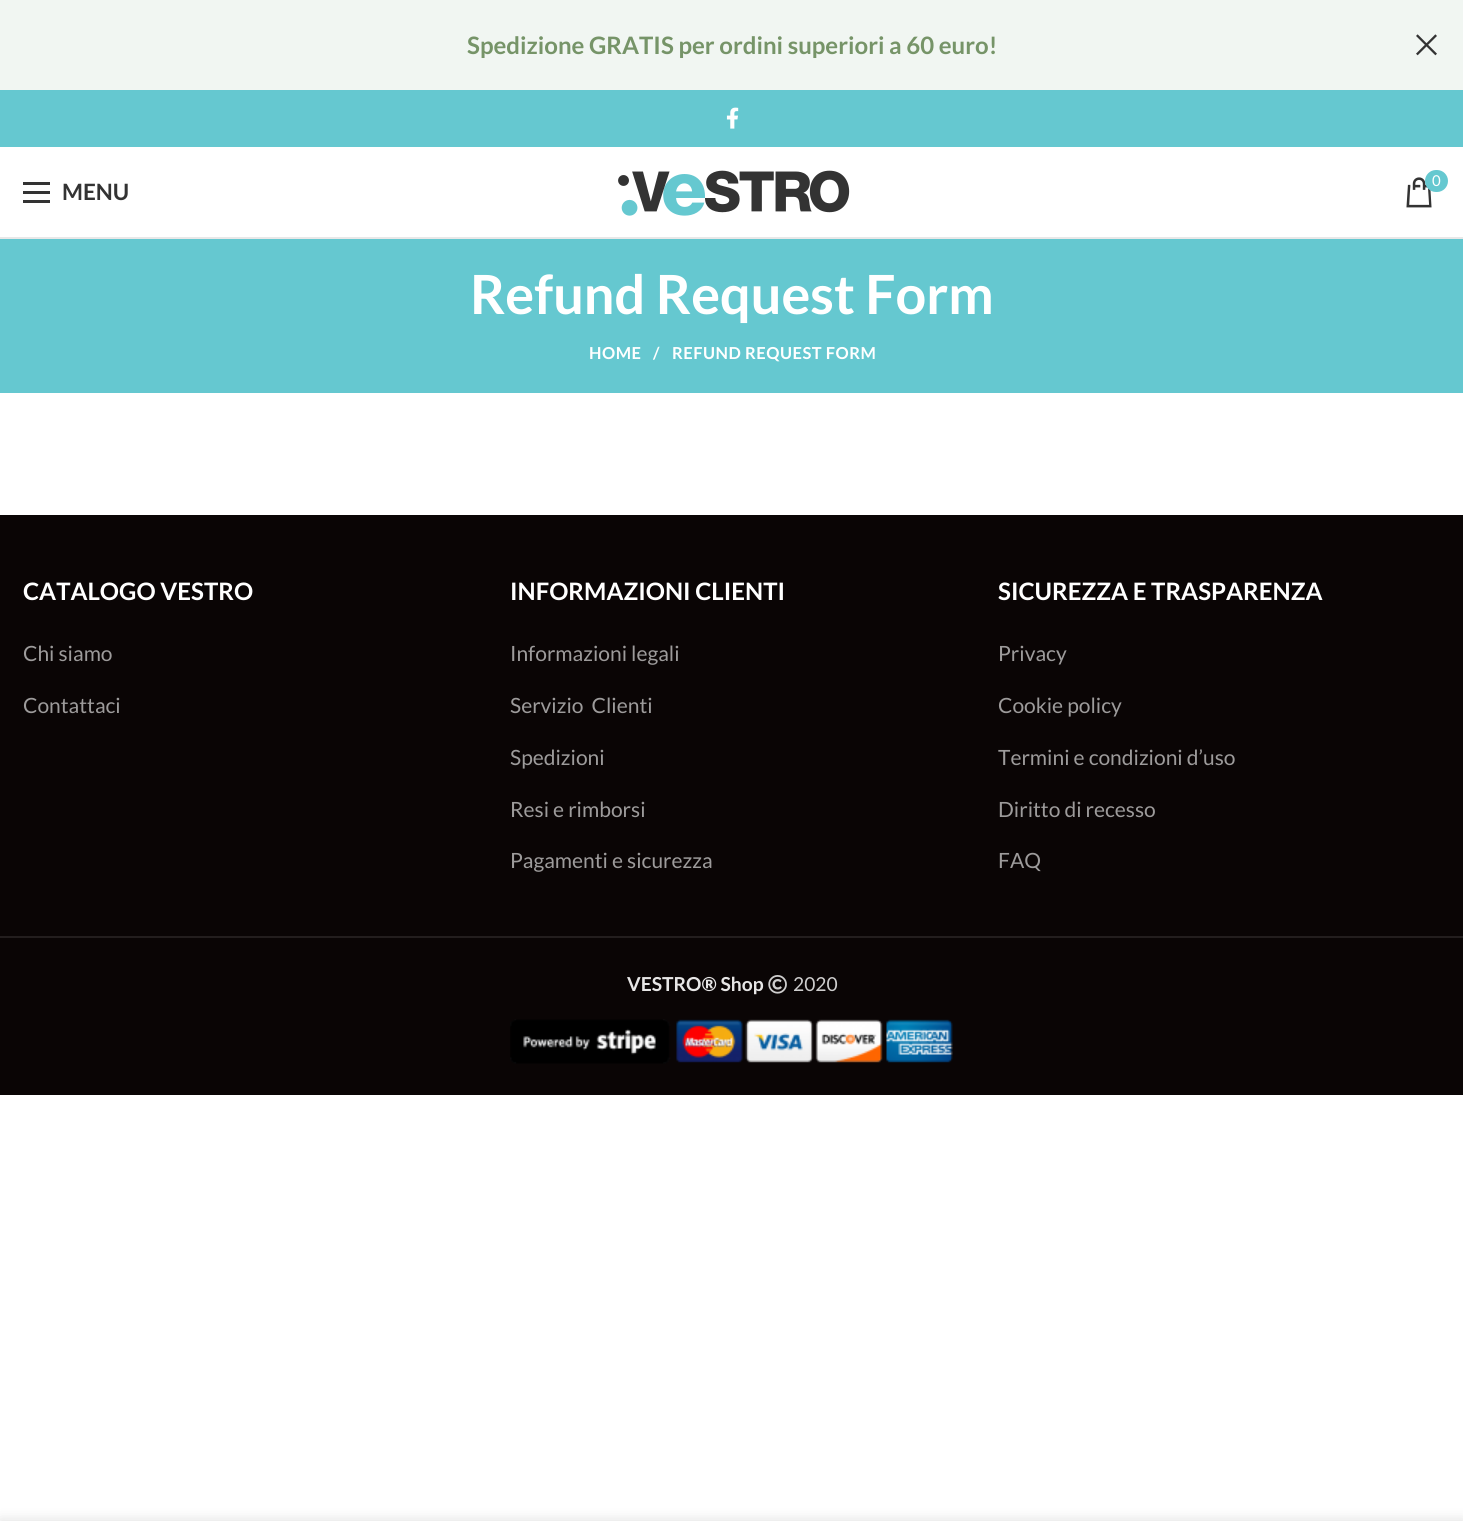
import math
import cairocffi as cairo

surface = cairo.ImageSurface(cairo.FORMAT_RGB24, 1463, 1521)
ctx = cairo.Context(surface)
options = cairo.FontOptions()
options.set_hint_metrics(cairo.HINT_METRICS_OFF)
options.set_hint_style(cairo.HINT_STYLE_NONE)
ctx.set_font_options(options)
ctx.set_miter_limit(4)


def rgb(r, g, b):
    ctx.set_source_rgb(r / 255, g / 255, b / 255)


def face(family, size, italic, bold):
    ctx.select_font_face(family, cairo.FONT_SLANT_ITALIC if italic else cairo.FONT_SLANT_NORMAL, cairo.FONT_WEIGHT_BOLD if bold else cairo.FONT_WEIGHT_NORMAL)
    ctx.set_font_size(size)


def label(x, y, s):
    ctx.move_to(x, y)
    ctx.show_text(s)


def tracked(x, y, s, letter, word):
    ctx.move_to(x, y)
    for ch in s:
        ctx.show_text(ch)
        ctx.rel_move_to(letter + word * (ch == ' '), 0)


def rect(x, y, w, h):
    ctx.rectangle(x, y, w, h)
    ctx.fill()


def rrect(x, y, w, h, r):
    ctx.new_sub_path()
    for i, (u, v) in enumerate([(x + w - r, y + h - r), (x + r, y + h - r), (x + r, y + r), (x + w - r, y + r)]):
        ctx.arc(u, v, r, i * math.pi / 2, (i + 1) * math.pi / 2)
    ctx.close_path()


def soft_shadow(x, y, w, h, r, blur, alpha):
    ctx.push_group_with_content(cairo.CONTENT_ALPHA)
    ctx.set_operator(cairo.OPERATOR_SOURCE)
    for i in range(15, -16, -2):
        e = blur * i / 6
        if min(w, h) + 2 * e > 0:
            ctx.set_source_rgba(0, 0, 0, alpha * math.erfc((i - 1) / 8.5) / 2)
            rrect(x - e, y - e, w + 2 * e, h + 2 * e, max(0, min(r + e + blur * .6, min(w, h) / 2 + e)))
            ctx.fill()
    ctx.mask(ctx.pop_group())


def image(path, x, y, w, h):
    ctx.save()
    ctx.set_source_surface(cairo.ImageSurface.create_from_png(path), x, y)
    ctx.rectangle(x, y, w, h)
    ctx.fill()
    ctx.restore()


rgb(255, 255, 255)
ctx.paint()
rgb(241, 246, 242)
rect(0, 0, 1463, 90)
face('Lato', 24, 0, 1)
rgb(118, 148, 104)
label(467, 54, 'Spedizione GRATIS per ordini superiori a 60 euro!')
image('image0.png', 1416, 34, 21, 22)
rgb(101, 200, 208)
rect(0, 90, 1463, 57)
image('image1.png', 726, 107, 13, 22)
rgb(232, 232, 232)
rect(0, 237, 1463, 2)
image('image2.png', 618, 170, 232, 46)
image('image3.png', 1406, 177, 26, 31)
rgb(101, 200, 208)
rrect(1425, 170, 23, 22, 11)
ctx.fill()
face('Lato', 15, 0, 0)
rgb(255, 255, 255)
label(1432, 186, '0')
rgb(51, 51, 51)
rect(23, 191, 27, 3)
rect(23, 182, 27, 3)
rect(23, 200, 27, 3)
face('Lato', 22.5, 0, 1)
label(62, 200, 'MENU')
rgb(101, 200, 208)
rect(0, 239, 1463, 154)
face('Lato', 54, 0, 1)
rgb(255, 255, 255)
label(470, 314, 'Refund Request Form')
face('Lato', 16.5, 0, 1)
tracked(589, 359, 'HOME', 0.5, 0)
tracked(653, 359, '/', 0.5, 0)
tracked(672, 359, 'REFUND REQUEST FORM', 0.5, 0)
rgb(10, 5, 5)
rect(0, 515, 1463, 580)
face('Lato', 24, 0, 1)
rgb(255, 255, 255)
label(23, 600, 'CATALOGO VESTRO')
face('Lato', 21, 0, 0)
rgb(157, 155, 155)
label(23, 661, 'Chi siamo')
label(23, 713, 'Contattaci')
face('Lato', 24, 0, 1)
rgb(255, 255, 255)
label(510, 600, 'INFORMAZIONI CLIENTI')
face('Lato', 21, 0, 0)
rgb(157, 155, 155)
label(510, 661, 'Informazioni legali')
label(510, 713, 'Servizio  Clienti')
label(510, 765, 'Spedizioni')
label(510, 817, 'Resi e rimborsi')
label(510, 868, 'Pagamenti e sicurezza')
face('Lato', 24, 0, 1)
rgb(255, 255, 255)
label(998, 600, 'SICUREZZA E TRASPARENZA')
face('Lato', 21, 0, 0)
rgb(157, 155, 155)
label(998, 661, 'Privacy')
label(998, 713, 'Cookie policy')
label(998, 765, 'Termini e condizioni d’uso')
label(998, 817, 'Diritto di recesso')
label(998, 868, 'FAQ')
rgb(35, 30, 30)
rect(0, 936, 1463, 2)
face('Lato', 19.25, 0, 1)
rgb(231, 230, 230)
label(627, 991, 'VESTRO® Shop')
image('image4.png', 768, 975, 19, 19)
face('Lato', 19.25, 0, 0)
rgb(206, 205, 205)
label(793, 991, '2020')
image('image5.png', 510, 1019, 443, 45)
rgb(0, 0, 0)
soft_shadow(0, 1521, 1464, 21, 0, 7, 0.14)
surface.write_to_png('render.png')
